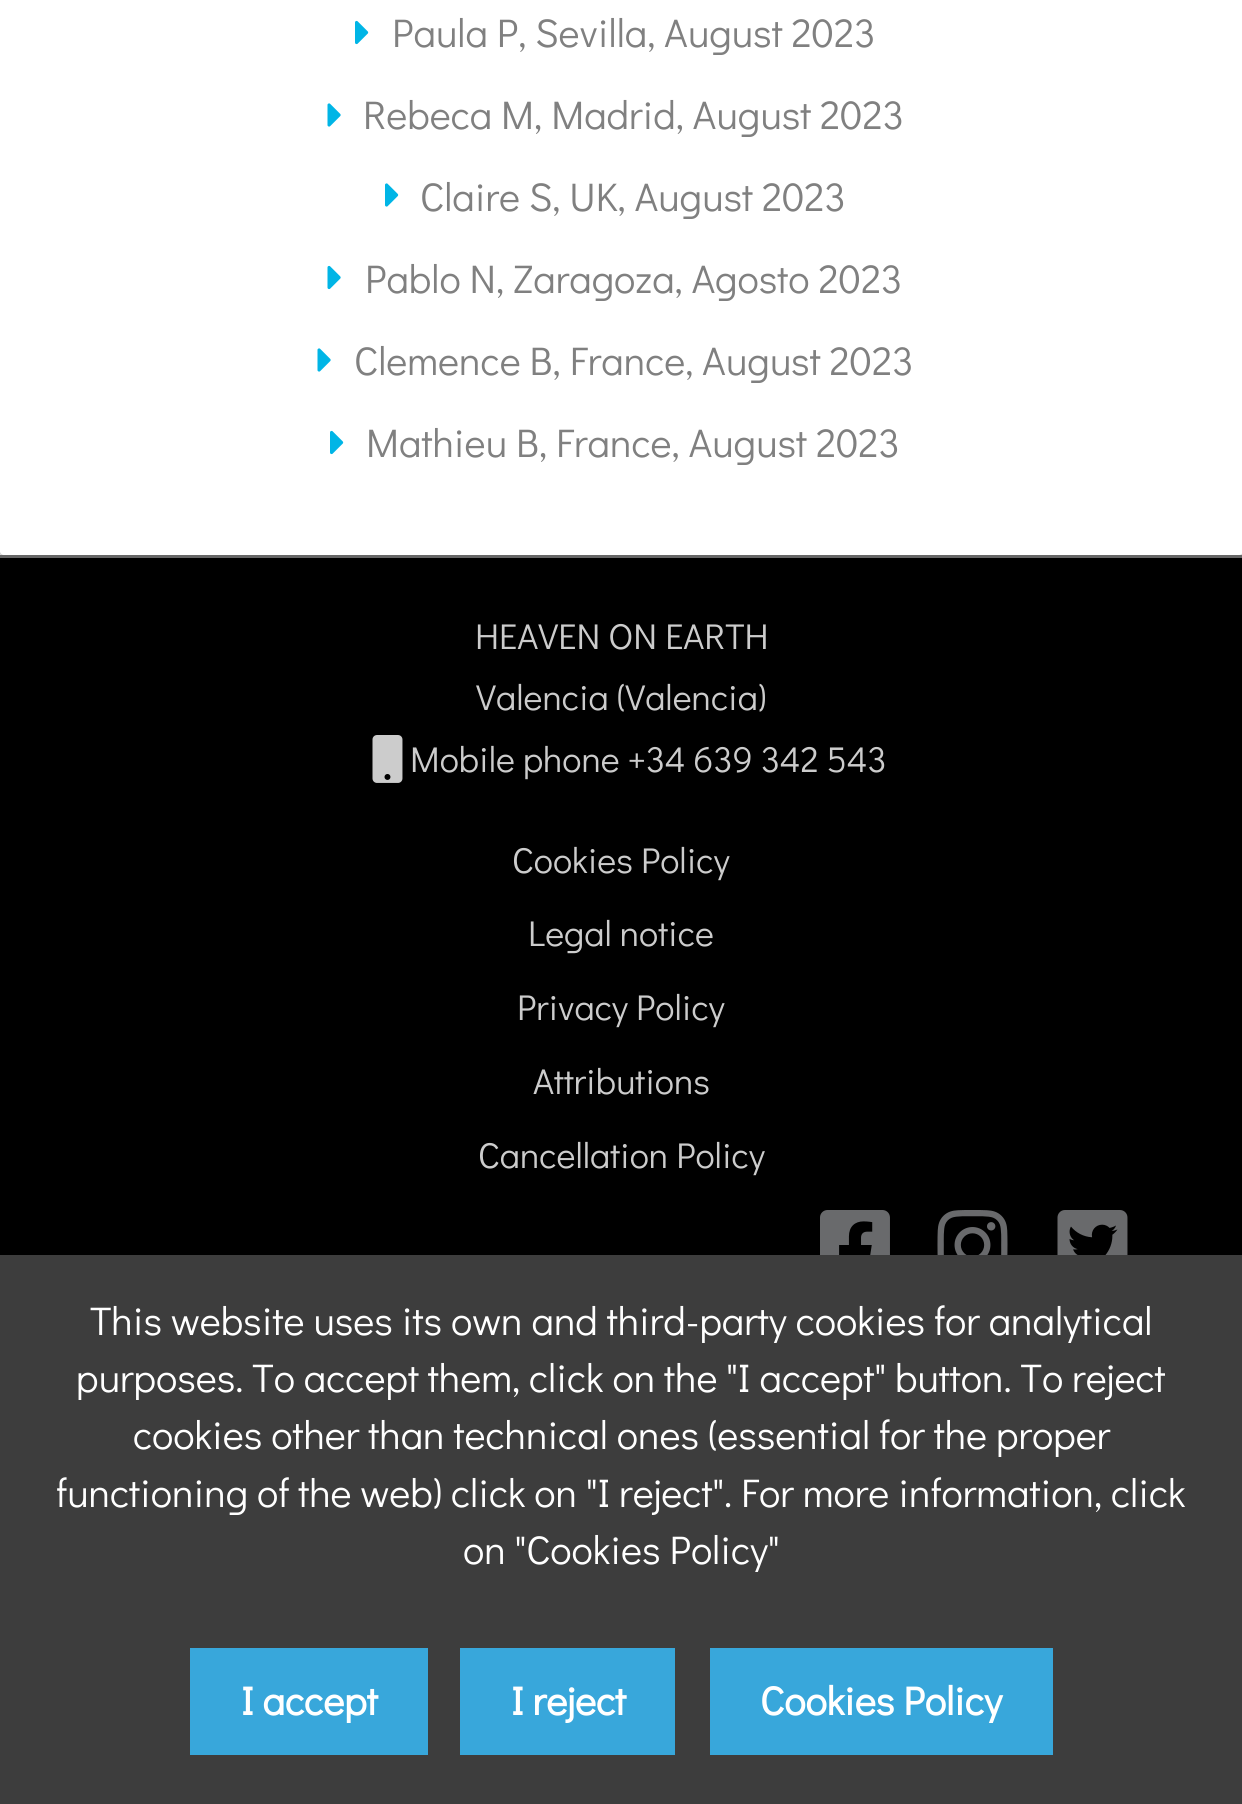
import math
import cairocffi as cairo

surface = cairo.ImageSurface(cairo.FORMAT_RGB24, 1242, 1804)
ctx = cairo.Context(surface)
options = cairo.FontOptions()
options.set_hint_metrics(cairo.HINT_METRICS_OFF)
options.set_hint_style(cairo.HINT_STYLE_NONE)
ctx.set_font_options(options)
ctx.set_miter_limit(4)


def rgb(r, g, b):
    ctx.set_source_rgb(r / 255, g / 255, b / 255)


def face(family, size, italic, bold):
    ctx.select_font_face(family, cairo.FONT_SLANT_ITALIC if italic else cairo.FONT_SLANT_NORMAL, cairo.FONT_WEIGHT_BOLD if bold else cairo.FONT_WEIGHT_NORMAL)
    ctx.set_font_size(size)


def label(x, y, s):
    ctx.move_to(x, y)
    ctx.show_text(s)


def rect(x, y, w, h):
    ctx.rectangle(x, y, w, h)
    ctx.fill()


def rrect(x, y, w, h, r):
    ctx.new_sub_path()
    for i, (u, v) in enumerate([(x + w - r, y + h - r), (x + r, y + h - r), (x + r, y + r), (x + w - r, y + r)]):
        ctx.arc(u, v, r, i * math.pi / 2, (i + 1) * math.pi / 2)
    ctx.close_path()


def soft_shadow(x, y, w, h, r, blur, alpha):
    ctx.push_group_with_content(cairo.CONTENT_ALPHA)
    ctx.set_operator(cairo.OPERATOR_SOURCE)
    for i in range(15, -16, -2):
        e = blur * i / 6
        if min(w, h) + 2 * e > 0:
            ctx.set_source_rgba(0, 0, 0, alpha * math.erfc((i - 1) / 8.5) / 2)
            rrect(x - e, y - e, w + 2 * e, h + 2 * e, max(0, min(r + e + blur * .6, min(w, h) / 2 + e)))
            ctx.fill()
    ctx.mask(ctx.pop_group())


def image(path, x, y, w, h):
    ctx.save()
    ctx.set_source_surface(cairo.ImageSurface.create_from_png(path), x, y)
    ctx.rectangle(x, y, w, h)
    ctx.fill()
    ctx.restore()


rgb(255, 255, 255)
ctx.paint()
ctx.save()
ctx.set_fill_rule(cairo.FILL_RULE_EVEN_ODD)
ctx.new_path()
ctx.move_to(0, 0)
ctx.line_to(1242, 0)
ctx.line_to(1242, 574)
ctx.line_to(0, 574)
ctx.close_path()
ctx.move_to(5, -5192)
ctx.line_to(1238, -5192)
ctx.curve_to(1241, -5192, 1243, -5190, 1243, -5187)
ctx.line_to(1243, 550)
ctx.curve_to(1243, 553, 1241, 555, 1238, 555)
ctx.line_to(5, 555)
ctx.curve_to(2, 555, 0, 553, 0, 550)
ctx.line_to(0, -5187)
ctx.curve_to(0, -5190, 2, -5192, 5, -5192)
ctx.close_path()
ctx.clip()
rgb(0, 0, 0)
soft_shadow(0, -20, 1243, 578, 5, 5, 0.3)
ctx.restore()
ctx.set_source_rgba(1, 1, 1, 0.9)
rrect(0, -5, 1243, 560, 5)
ctx.fill()
image('image0.png', 355, 20, 14, 25)
face('Didact Gothic', 40, 0, 0)
rgb(128, 128, 128)
label(392, 47, 'Paula P, Sevilla, August 2023')
image('image1.png', 327, 103, 14, 24)
label(363, 129, 'Rebeca M, Madrid, August 2023')
image('image2.png', 385, 183, 14, 24)
label(420, 211, 'Claire S, UK, August 2023')
image('image3.png', 327, 265, 14, 25)
label(365, 293, 'Pablo N, Zaragoza, Agosto 2023')
image('image1.png', 317, 348, 14, 24)
label(354, 375, 'Clemence B, France, August 2023')
image('image0.png', 330, 430, 14, 25)
label(366, 457, 'Mathieu B, France, August 2023')
rgb(0, 0, 0)
rect(0, 558, 1242, 697)
rgb(102, 102, 102)
rect(0, 555, 1242, 3)
face('Didact Gothic', 36, 0, 0)
rgb(204, 204, 204)
label(475, 649, 'HEAVEN ON EARTH')
label(476, 710, 'Valencia (Valencia)')
image('image4.png', 372, 735, 31, 48)
label(410, 772, 'Mobile phone +34 639 342 543')
label(512, 873, 'Cookies Policy')
label(528, 946, 'Legal notice')
label(517, 1020, 'Privacy Policy')
label(533, 1094, 'Attributions')
label(478, 1168, 'Cancellation Policy')
image('image5.png', 820, 1210, 70, 45)
image('image6.png', 937, 1210, 71, 45)
image('image7.png', 1057, 1210, 71, 45)
rgb(61, 61, 61)
rect(0, 1255, 1242, 549)
face('Didact Gothic', 40, 0, 0)
rgb(255, 255, 255)
label(90, 1335, 'This website uses its own and third-party cookies for analytical')
label(76, 1392, 'purposes. To accept them, click on the "I accept" button. To reject')
label(133, 1449, 'cookies other than technical ones (essential for the proper')
label(56, 1507, 'functioning of the web) click on "I reject". For more information, click')
label(463, 1564, 'on "Cookies Policy"')
rgb(56, 167, 219)
rect(190, 1648, 238, 107)
face('Didact Gothic', 40, 0, 1)
rgb(255, 255, 255)
label(241, 1715, 'I accept')
rgb(56, 167, 219)
rect(460, 1648, 215, 107)
rgb(255, 255, 255)
label(511, 1715, 'I reject')
rgb(56, 167, 219)
rect(710, 1648, 343, 107)
rgb(255, 255, 255)
label(760, 1715, 'Cookies Policy')
surface.write_to_png('render.png')
